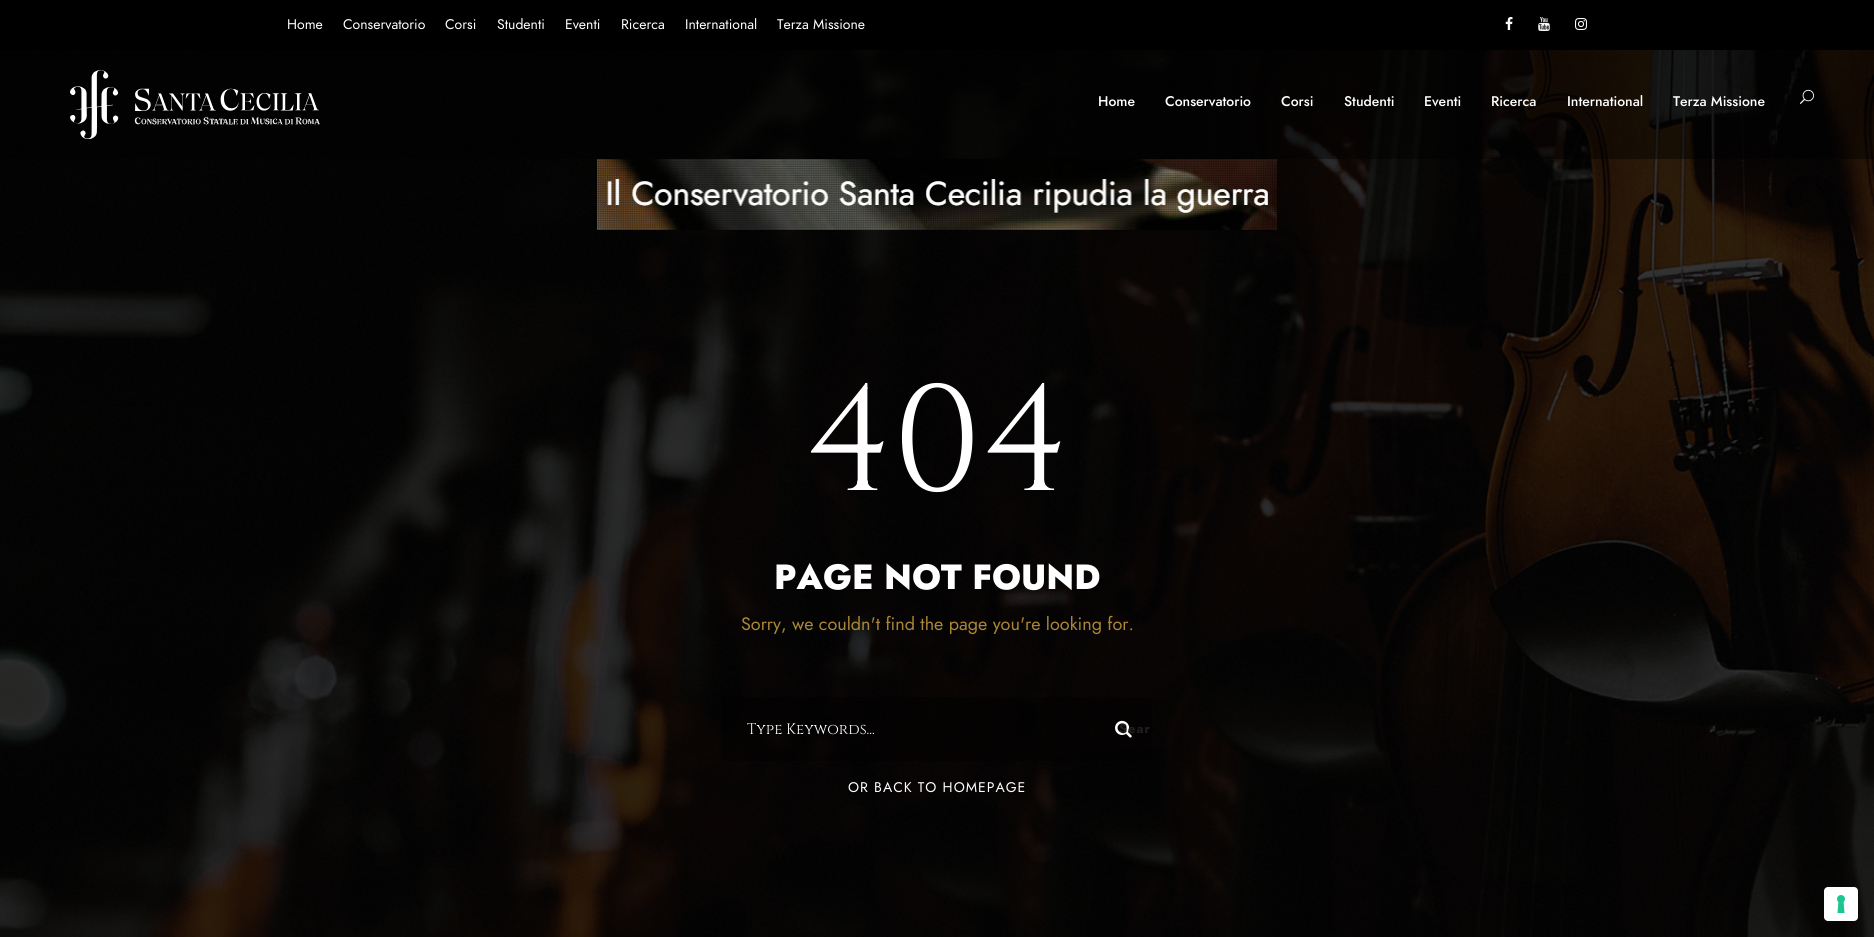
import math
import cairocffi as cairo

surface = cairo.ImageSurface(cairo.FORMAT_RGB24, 1874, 937)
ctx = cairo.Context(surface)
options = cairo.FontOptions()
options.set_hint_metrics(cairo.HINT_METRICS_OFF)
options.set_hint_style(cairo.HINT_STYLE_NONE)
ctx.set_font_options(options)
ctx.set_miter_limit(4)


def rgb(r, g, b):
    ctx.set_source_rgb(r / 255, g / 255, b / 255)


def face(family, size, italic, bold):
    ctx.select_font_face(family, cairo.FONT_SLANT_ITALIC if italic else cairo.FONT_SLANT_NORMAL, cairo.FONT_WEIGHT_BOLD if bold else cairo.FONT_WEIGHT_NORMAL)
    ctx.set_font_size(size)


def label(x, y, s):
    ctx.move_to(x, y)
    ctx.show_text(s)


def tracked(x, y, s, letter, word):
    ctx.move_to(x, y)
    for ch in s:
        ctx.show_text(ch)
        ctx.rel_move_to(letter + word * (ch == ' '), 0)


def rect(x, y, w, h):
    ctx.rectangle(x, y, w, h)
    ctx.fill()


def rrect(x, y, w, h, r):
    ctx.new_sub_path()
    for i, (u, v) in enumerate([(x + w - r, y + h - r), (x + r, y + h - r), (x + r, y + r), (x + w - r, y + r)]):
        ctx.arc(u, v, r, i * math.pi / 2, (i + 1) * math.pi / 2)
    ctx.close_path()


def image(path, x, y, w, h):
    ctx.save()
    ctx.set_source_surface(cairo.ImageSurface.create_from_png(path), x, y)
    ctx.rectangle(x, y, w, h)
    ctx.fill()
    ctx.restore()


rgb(0, 0, 0)
ctx.paint()
face('Jost', 14, 0, 0)
rgb(255, 255, 255)
label(287, 29, 'Home')
label(343, 29, 'Conservatorio')
label(445, 29, 'Corsi')
label(497, 29, 'Studenti')
label(565, 29, 'Eventi')
label(621, 29, 'Ricerca')
label(685, 29, 'International')
label(777, 29, 'Terza Missione')
image('image0.png', 1505, 17, 8, 13)
image('image1.png', 1538, 17, 12, 14)
image('image2.png', 1575, 18, 12, 12)
image('image6.png', 0, 50, 1874, 887)
ctx.set_source_rgba(0, 0, 0, 0.45)
rect(0, 50, 1874, 109)
image('image3.png', 70, 70, 250, 69)
face('Jost Medium', 14, 0, 0)
rgb(255, 255, 255)
label(1098, 106, 'Home')
label(1165, 106, 'Conservatorio')
label(1281, 106, 'Corsi')
label(1344, 106, 'Studenti')
label(1424, 106, 'Eventi')
label(1491, 106, 'Ricerca')
label(1567, 106, 'International')
label(1673, 106, 'Terza Missione')
image('image4.png', 1800, 89, 14, 15)
image('image5.png', 597, 159, 680, 71)
face('Cinzel', 150, 0, 0)
label(805, 490, '404')
face('Jost Black', 35, 0, 0)
label(774, 589, 'PAGE NOT FOUND')
face('Jost', 18, 0, 0)
rgb(170, 135, 56)
label(741, 630, 'Sorry, we couldn\'t find the page you\'re looking for.')
ctx.set_source_rgba(0, 0, 0, 0.4)
rrect(722, 697, 430, 64, 3)
ctx.fill()
face('Cinzel', 15, 0, 0)
rgb(255, 255, 255)
label(747, 734, 'Type Keywords...')
image('image7.png', 1115, 720, 17, 18)
face('Jost', 13, 0, 1)
rgb(32, 31, 30)
tracked(1119, 733, 'Sear', 1, 0)
face('Jost', 14, 0, 0)
rgb(255, 255, 255)
tracked(848, 792, 'OR BACK TO HOMEPAGE', 1, 0)
rrect(1824, 887, 34, 34, 4)
ctx.fill()
image('image8.png', 1837, 895, 8, 18)
surface.write_to_png('render.png')
